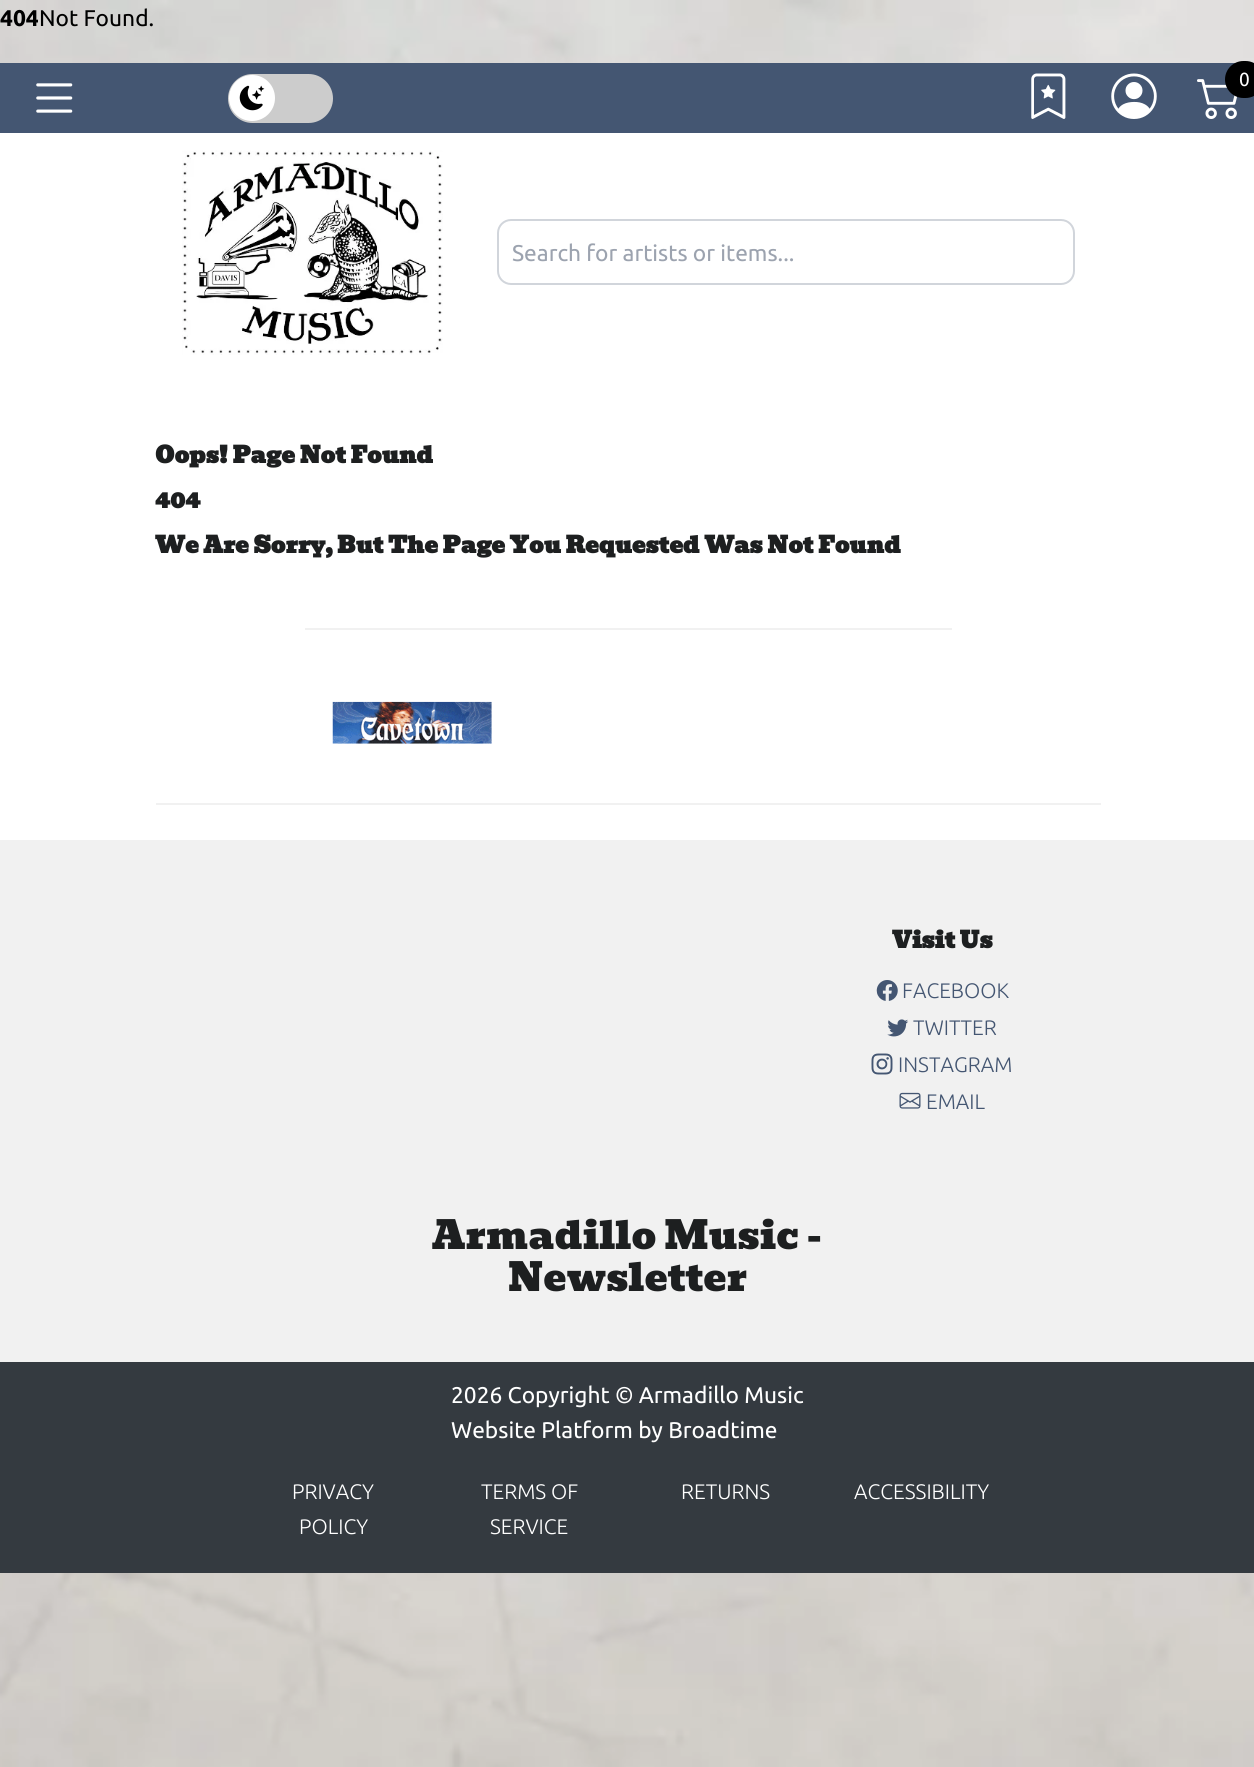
import math
import cairocffi as cairo

surface = cairo.ImageSurface(cairo.FORMAT_RGB24, 1254, 1767)
ctx = cairo.Context(surface)
options = cairo.FontOptions()
options.set_hint_metrics(cairo.HINT_METRICS_OFF)
options.set_hint_style(cairo.HINT_STYLE_NONE)
ctx.set_font_options(options)
ctx.set_miter_limit(4)


def rgb(r, g, b):
    ctx.set_source_rgb(r / 255, g / 255, b / 255)


def face(family, size, italic, bold):
    ctx.select_font_face(family, cairo.FONT_SLANT_ITALIC if italic else cairo.FONT_SLANT_NORMAL, cairo.FONT_WEIGHT_BOLD if bold else cairo.FONT_WEIGHT_NORMAL)
    ctx.set_font_size(size)


def label(x, y, s):
    ctx.move_to(x, y)
    ctx.show_text(s)


def rect(x, y, w, h):
    ctx.rectangle(x, y, w, h)
    ctx.fill()


def rrect(x, y, w, h, r):
    ctx.new_sub_path()
    for i, (u, v) in enumerate([(x + w - r, y + h - r), (x + r, y + h - r), (x + r, y + r), (x + w - r, y + r)]):
        ctx.arc(u, v, r, i * math.pi / 2, (i + 1) * math.pi / 2)
    ctx.close_path()


def image(path, x, y, w, h):
    ctx.save()
    ctx.set_source_surface(cairo.ImageSurface.create_from_png(path), x, y)
    ctx.rectangle(x, y, w, h)
    ctx.fill()
    ctx.restore()


rgb(255, 255, 255)
ctx.paint()
image('image0.png', 0, 0, 1254, 1767)
face('Ubuntu', 22.75, 0, 1)
rgb(0, 0, 0)
label(0, 26, '404')
face('Ubuntu', 22.75, 0, 0)
label(39, 26, 'Not Found.')
rgb(255, 255, 255)
rect(0, 133, 1254, 707)
rgb(68, 86, 114)
rect(0, 63, 1254, 70)
image('image1.png', 36, 83, 37, 30)
rgb(204, 204, 204)
rrect(228, 74, 105, 49, 24.5)
ctx.fill()
rgb(255, 255, 255)
ctx.arc(252, 98, 23, 0, 2 * math.pi)
ctx.fill()
image('image2.png', 239, 85, 26, 26)
image('image3.png', 1031, 73, 35, 46)
image('image4.png', 1111, 73, 46, 46)
image('image5.png', 1197, 79, 41, 40)
rgb(0, 0, 0)
rrect(1225, 61, 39, 37, 18.5)
ctx.fill()
face('Ubuntu', 19, 0, 0)
rgb(255, 255, 255)
label(1239, 86, '0')
image('image6.png', 182, 150, 261, 205)
rrect(498, 220, 576, 64, 13)
rgb(209, 213, 219)
ctx.stroke()
face('Ubuntu', 22.75, 0, 0)
rgb(156, 163, 175)
label(512, 261, 'Search for artists or items...')
face('Bevan', 22.75, 0, 1)
rgb(29, 31, 32)
label(155, 463, 'Oops! Page Not Found')
label(155, 508, '404')
label(155, 553, 'We Are Sorry, But The Page You Requested Was Not Found')
rgb(241, 241, 241)
rect(305, 628, 647, 2)
image('image7.png', 332, 701, 160, 43)
rect(156, 803, 945, 2)
rect(0, 840, 1254, 522)
rgb(29, 31, 32)
label(892, 948, 'Visit Us')
image('image8.png', 876, 980, 22, 21)
face('Ubuntu Light', 21, 0, 0)
rgb(68, 86, 114)
label(902, 998, 'FACEBOOK')
image('image9.png', 887, 1019, 22, 18)
label(913, 1035, 'TWITTER')
image('image10.png', 871, 1053, 22, 22)
label(898, 1072, 'INSTAGRAM')
image('image11.png', 899, 1092, 22, 17)
label(926, 1109, 'EMAIL')
face('Bevan', 38.5, 0, 0)
rgb(29, 31, 32)
label(432, 1249, 'Armadillo Music -')
label(508, 1291, 'Newsletter')
rgb(52, 58, 64)
rect(0, 1362, 1254, 211)
face('Ubuntu', 22.75, 0, 0)
rgb(255, 255, 255)
label(451, 1403, '2026 Copyright © Armadillo Music')
label(451, 1438, 'Website Platform by Broadtime')
face('Ubuntu Light', 21, 0, 0)
label(292, 1499, 'PRIVACY')
label(299, 1534, 'POLICY')
label(481, 1499, 'TERMS OF')
label(490, 1534, 'SERVICE')
label(681, 1499, 'RETURNS')
label(854, 1499, 'ACCESSIBILITY')
surface.write_to_png('render.png')
